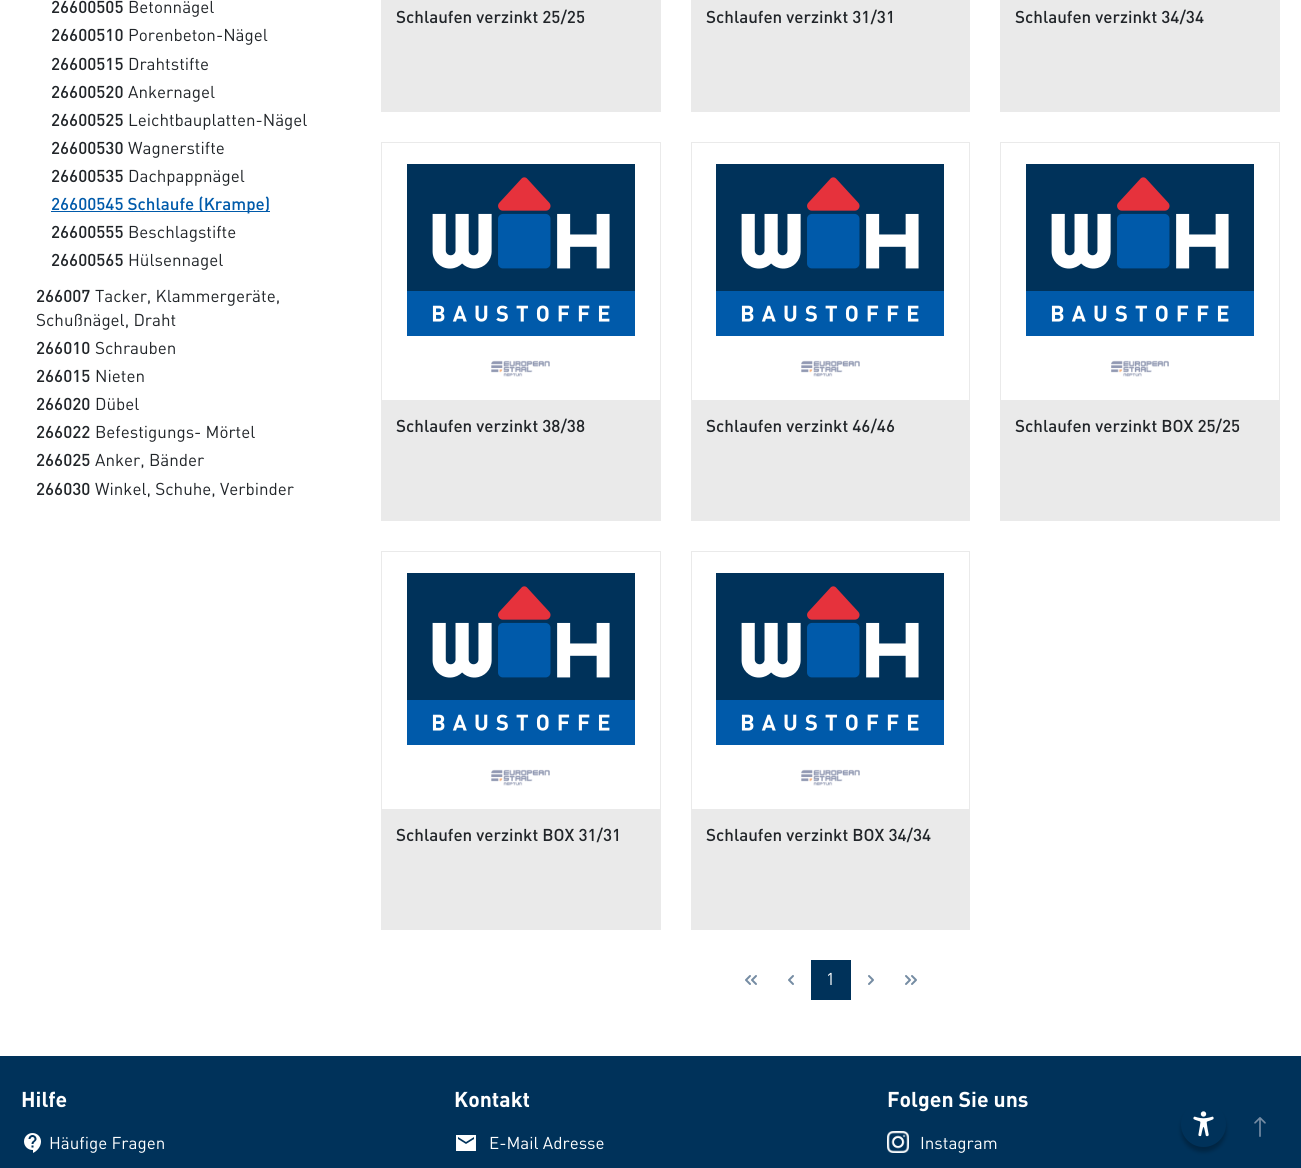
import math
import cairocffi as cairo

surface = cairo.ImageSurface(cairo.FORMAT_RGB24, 1301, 1168)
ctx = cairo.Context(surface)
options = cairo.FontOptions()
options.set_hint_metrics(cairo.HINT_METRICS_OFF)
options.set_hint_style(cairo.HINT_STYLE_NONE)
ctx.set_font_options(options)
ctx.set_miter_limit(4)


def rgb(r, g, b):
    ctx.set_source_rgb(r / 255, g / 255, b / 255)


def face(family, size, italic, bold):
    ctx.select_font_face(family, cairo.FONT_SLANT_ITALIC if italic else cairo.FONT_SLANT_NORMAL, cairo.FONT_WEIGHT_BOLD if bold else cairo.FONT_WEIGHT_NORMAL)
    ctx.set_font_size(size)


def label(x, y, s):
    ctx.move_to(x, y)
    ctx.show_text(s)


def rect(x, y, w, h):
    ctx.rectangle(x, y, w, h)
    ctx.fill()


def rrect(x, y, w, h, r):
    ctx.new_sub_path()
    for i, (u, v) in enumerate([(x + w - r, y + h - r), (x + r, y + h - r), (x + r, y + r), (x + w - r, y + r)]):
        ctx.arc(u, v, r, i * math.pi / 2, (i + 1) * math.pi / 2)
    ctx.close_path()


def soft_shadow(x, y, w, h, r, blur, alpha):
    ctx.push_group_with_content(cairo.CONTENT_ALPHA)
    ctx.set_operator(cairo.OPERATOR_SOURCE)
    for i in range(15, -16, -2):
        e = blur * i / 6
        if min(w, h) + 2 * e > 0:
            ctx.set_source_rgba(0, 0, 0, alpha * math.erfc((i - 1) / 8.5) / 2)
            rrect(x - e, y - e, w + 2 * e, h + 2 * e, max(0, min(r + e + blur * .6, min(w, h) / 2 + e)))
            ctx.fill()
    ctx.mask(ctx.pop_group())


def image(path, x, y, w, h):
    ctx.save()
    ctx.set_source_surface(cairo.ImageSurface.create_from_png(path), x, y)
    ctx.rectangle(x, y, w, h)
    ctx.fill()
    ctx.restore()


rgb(255, 255, 255)
ctx.paint()
face('DIN Medium', 17, 0, 0)
rgb(33, 37, 41)
label(51, 13, '26600505')
face('DIN', 17, 0, 0)
label(128, 13, 'Betonnägel')
face('DIN Medium', 17, 0, 0)
label(51, 41, '26600510')
face('DIN', 17, 0, 0)
label(128, 41, 'Porenbeton-Nägel')
face('DIN Medium', 17, 0, 0)
label(51, 70, '26600515')
face('DIN', 17, 0, 0)
label(128, 70, 'Drahtstifte')
face('DIN Medium', 17, 0, 0)
label(51, 98, '26600520')
face('DIN', 17, 0, 0)
label(128, 98, 'Ankernagel')
face('DIN Medium', 17, 0, 0)
label(51, 126, '26600525')
face('DIN', 17, 0, 0)
label(128, 126, 'Leichtbauplatten-Nägel')
face('DIN Medium', 17, 0, 0)
label(51, 154, '26600530')
face('DIN', 17, 0, 0)
label(128, 154, 'Wagnerstifte')
face('DIN Medium', 17, 0, 0)
label(51, 182, '26600535')
face('DIN', 17, 0, 0)
label(128, 182, 'Dachpappnägel')
rgb(0, 90, 170)
rect(51, 211, 219, 1)
face('DIN Medium', 17, 0, 0)
label(51, 210, '26600545 Schlaufe (Krampe)')
rgb(33, 37, 41)
label(51, 238, '26600555')
face('DIN', 17, 0, 0)
label(128, 238, 'Beschlagstifte')
face('DIN Medium', 17, 0, 0)
label(51, 266, '26600565')
face('DIN', 17, 0, 0)
label(128, 266, 'Hülsennagel')
face('DIN Medium', 17, 0, 0)
label(36, 302, '266007')
face('DIN', 17, 0, 0)
label(95, 302, 'Tacker, Klammergeräte,')
label(36, 326, 'Schußnägel, Draht')
face('DIN Medium', 17, 0, 0)
label(36, 354, '266010')
face('DIN', 17, 0, 0)
label(95, 354, 'Schrauben')
face('DIN Medium', 17, 0, 0)
label(36, 382, '266015')
face('DIN', 17, 0, 0)
label(95, 382, 'Nieten')
face('DIN Medium', 17, 0, 0)
label(36, 410, '266020')
face('DIN', 17, 0, 0)
label(95, 410, 'Dübel')
face('DIN Medium', 17, 0, 0)
label(36, 438, '266022')
face('DIN', 17, 0, 0)
label(95, 438, 'Befestigungs- Mörtel')
face('DIN Medium', 17, 0, 0)
label(36, 466, '266025')
face('DIN', 17, 0, 0)
label(95, 466, 'Anker, Bänder')
face('DIN Medium', 17, 0, 0)
label(36, 495, '266030')
face('DIN', 17, 0, 0)
label(95, 495, 'Winkel, Schuhe, Verbinder')
rgb(234, 234, 234)
rect(381, 0, 280, 112)
face('DIN Medium', 17, 0, 0)
rgb(33, 37, 41)
label(396, 23, 'Schlaufen verzinkt 25/25')
rgb(234, 234, 234)
rect(691, 0, 279, 112)
rgb(33, 37, 41)
label(706, 23, 'Schlaufen verzinkt 31/31')
rgb(234, 234, 234)
rect(1000, 0, 280, 112)
rgb(33, 37, 41)
label(1015, 23, 'Schlaufen verzinkt 34/34')
rgb(234, 234, 234)
rect(381, 142, 280, 379)
rgb(255, 255, 255)
rect(382, 143, 278, 257)
image('image0.png', 407, 164, 228, 172)
image('image1.png', 491, 360, 59, 17)
rgb(33, 37, 41)
label(396, 432, 'Schlaufen verzinkt 38/38')
rgb(234, 234, 234)
rect(691, 142, 279, 379)
rgb(255, 255, 255)
rect(692, 143, 277, 257)
image('image0.png', 716, 164, 228, 172)
image('image1.png', 801, 360, 59, 17)
rgb(33, 37, 41)
label(706, 432, 'Schlaufen verzinkt 46/46')
rgb(234, 234, 234)
rect(1000, 142, 280, 379)
rgb(255, 255, 255)
rect(1001, 143, 278, 257)
image('image0.png', 1026, 164, 228, 172)
image('image2.png', 1111, 360, 58, 17)
rgb(33, 37, 41)
label(1015, 432, 'Schlaufen verzinkt BOX 25/25')
rgb(234, 234, 234)
rect(381, 551, 280, 379)
rgb(255, 255, 255)
rect(382, 552, 278, 257)
image('image0.png', 407, 573, 228, 172)
image('image1.png', 491, 769, 59, 17)
rgb(33, 37, 41)
label(396, 841, 'Schlaufen verzinkt BOX 31/31')
rgb(234, 234, 234)
rect(691, 551, 279, 379)
rgb(255, 255, 255)
rect(692, 552, 277, 257)
image('image0.png', 716, 573, 228, 172)
image('image1.png', 801, 769, 59, 17)
rgb(33, 37, 41)
label(706, 841, 'Schlaufen verzinkt BOX 34/34')
image('image3.png', 745, 975, 12, 10)
image('image4.png', 788, 975, 6, 10)
rgb(0, 50, 90)
rect(811, 960, 40, 40)
face('DIN', 17, 0, 0)
rgb(255, 255, 255)
label(826, 985, '1')
image('image5.png', 868, 975, 6, 10)
image('image6.png', 905, 975, 12, 10)
rgb(0, 50, 90)
rect(0, 1056, 1301, 112)
face('DIN', 21.25, 0, 1)
rgb(255, 255, 255)
label(21, 1107, 'Hilfe')
image('image7.png', 24, 1133, 17, 20)
face('DIN', 17, 0, 0)
label(49, 1149, 'Häufige Fragen')
face('DIN', 21.25, 0, 1)
label(454, 1107, 'Kontakt')
image('image8.png', 456, 1135, 20, 16)
face('DIN', 17, 0, 0)
label(489, 1149, 'E-Mail Adresse')
face('DIN', 21.25, 0, 1)
label(887, 1107, 'Folgen Sie uns')
image('image9.png', 887, 1131, 22, 22)
face('DIN', 17, 0, 0)
label(920, 1149, 'Instagram')
image('image10.png', 1254, 1117, 12, 20)
rgb(0, 0, 0)
soft_shadow(1181, 1107, 45, 45, 22.5, 2, 0.26)
rgb(0, 50, 90)
ctx.arc(1203.5, 1124.5, 22.5, 0, 2 * math.pi)
ctx.fill()
image('image11.png', 1193, 1111, 21, 26)
surface.write_to_png('render.png')
